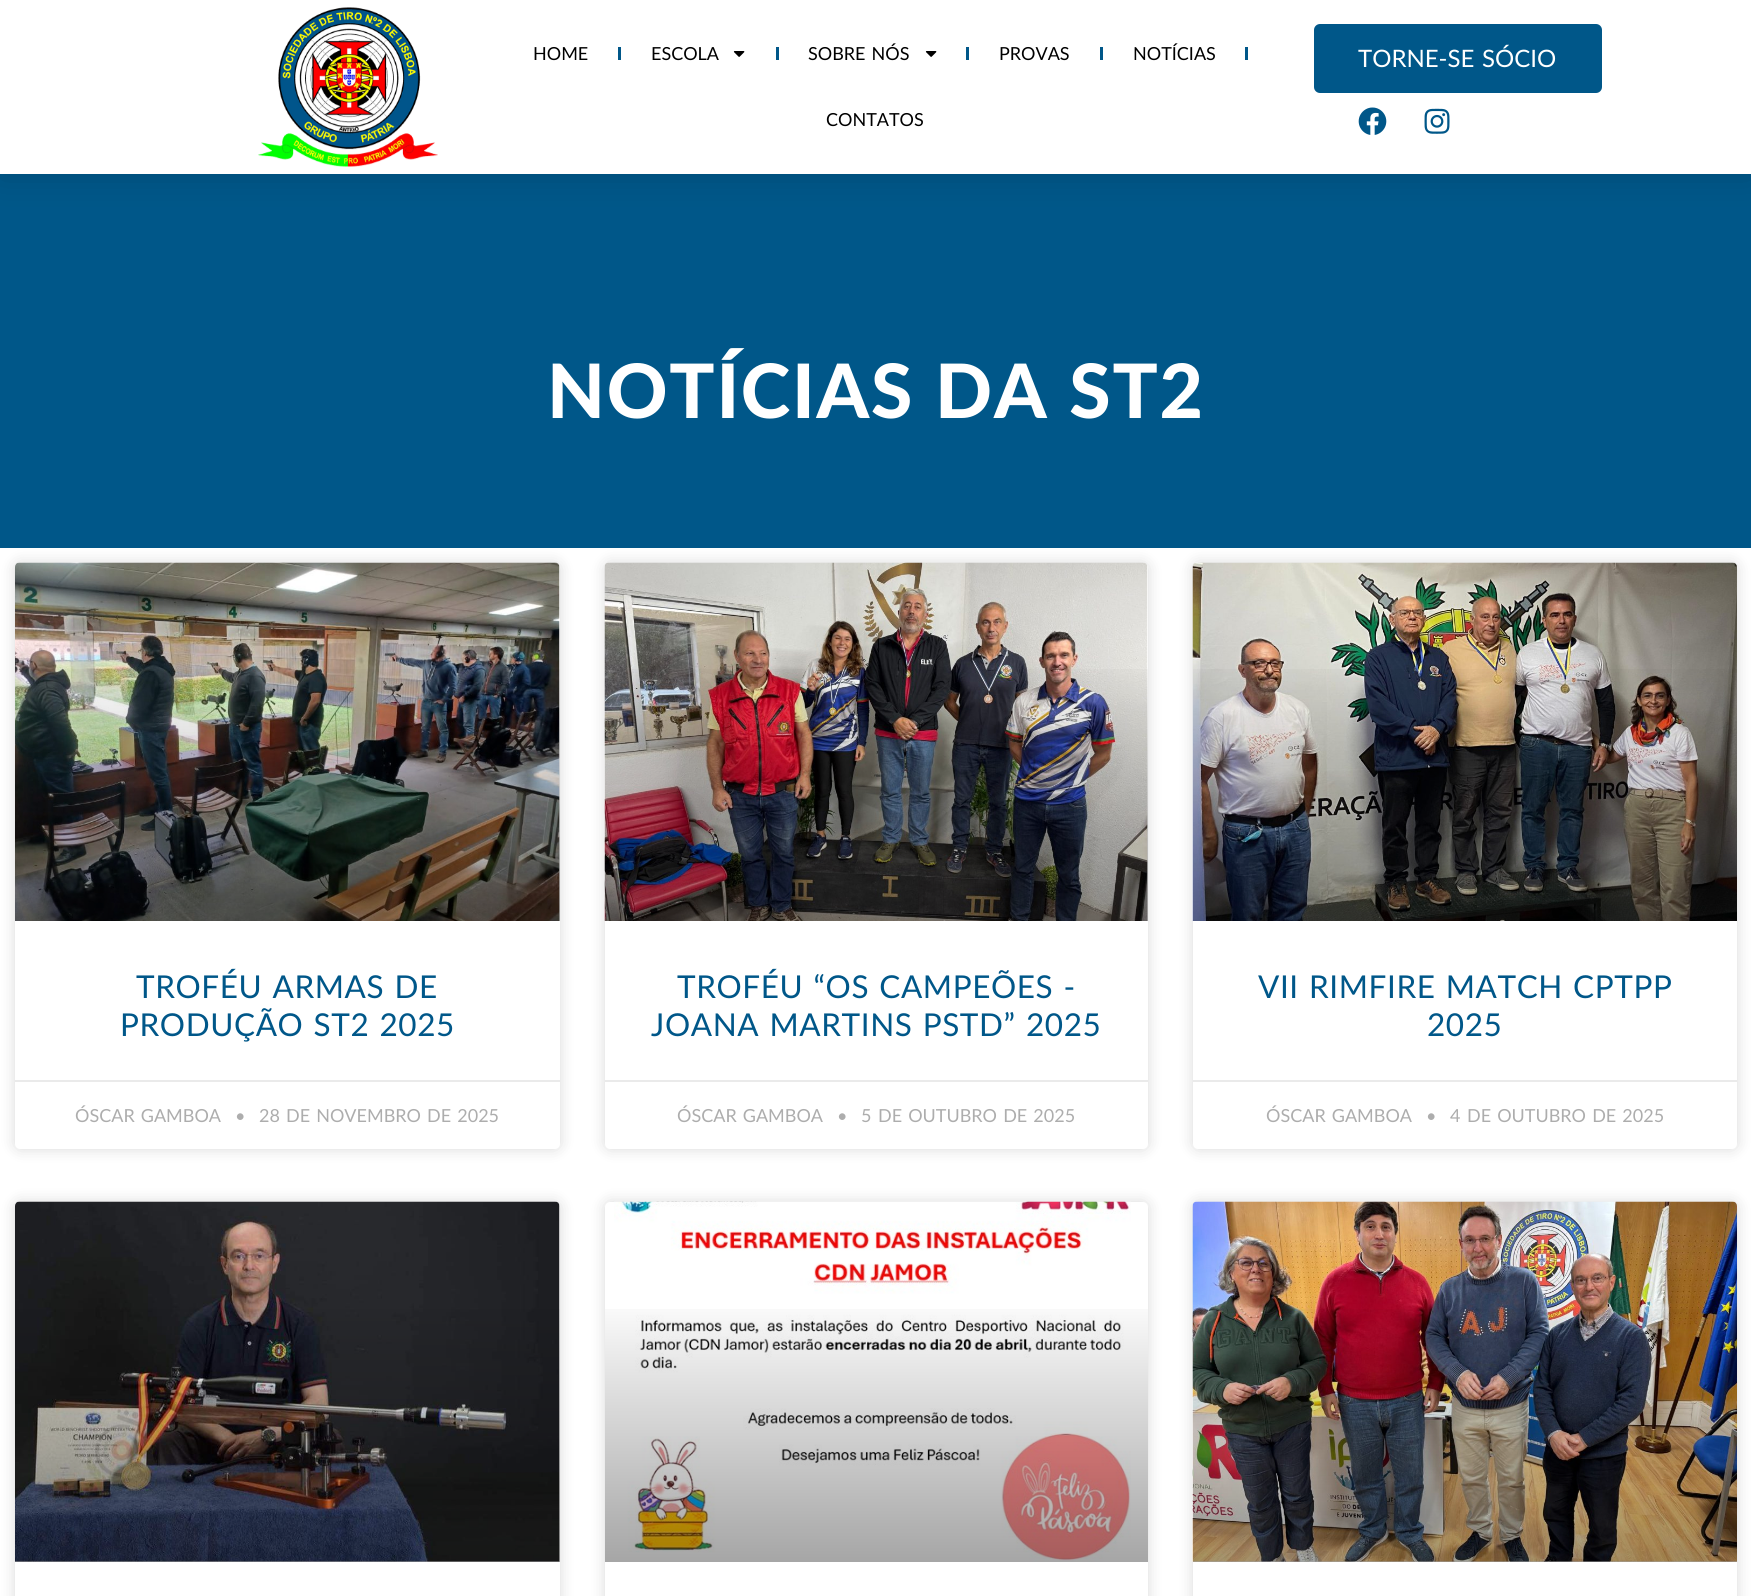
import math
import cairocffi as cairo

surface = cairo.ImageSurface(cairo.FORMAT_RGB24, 1751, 1596)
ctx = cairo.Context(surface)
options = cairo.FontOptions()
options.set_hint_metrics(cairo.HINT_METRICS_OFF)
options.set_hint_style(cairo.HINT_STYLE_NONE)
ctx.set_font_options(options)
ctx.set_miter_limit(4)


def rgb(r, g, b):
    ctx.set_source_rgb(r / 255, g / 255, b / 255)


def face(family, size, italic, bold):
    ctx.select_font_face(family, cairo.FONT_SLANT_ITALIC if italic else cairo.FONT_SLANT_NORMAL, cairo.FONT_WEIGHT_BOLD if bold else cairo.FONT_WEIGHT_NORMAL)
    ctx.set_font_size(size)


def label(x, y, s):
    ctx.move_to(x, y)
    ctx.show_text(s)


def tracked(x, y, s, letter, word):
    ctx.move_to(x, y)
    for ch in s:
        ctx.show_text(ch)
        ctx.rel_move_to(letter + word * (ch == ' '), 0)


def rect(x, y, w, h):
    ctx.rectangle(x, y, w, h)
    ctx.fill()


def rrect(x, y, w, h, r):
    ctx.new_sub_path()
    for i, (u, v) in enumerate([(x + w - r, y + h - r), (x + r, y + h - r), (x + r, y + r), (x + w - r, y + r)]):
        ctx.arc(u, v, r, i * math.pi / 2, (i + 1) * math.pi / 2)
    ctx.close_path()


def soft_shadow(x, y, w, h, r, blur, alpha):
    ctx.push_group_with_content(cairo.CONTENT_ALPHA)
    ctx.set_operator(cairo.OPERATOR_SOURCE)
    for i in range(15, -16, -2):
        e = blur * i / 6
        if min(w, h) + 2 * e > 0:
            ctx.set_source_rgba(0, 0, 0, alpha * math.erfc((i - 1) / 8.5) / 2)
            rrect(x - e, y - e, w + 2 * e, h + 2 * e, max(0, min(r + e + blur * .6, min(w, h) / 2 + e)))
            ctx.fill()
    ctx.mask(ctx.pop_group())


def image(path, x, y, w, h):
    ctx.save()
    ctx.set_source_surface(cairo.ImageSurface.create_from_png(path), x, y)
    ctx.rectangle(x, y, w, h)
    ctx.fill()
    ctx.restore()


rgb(0, 87, 137)
ctx.paint()
rgb(0, 0, 0)
soft_shadow(0, 0, 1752, 174, 0, 18, 0.15)
rgb(255, 255, 255)
rect(0, 0, 1751, 174)
image('image0.png', 258, 7, 180, 160)
face('Lato', 18, 0, 0)
rgb(0, 0, 0)
label(533, 60, 'HOME')
rgb(0, 87, 137)
rect(618, 47, 3, 13)
rgb(0, 0, 0)
label(651, 60, 'ESCOLA')
image('image1.png', 733, 51, 12, 6)
rgb(0, 87, 137)
rect(776, 47, 3, 13)
rgb(0, 0, 0)
tracked(808, 60, 'SOBRE NÓS', 0, 1.5)
image('image1.png', 925, 51, 12, 6)
rgb(0, 87, 137)
rect(966, 47, 3, 13)
rgb(0, 0, 0)
label(999, 60, 'PROVAS')
rgb(0, 87, 137)
rect(1100, 47, 3, 13)
rgb(0, 0, 0)
label(1133, 60, 'NOTÍCIAS')
rgb(0, 87, 137)
rect(1245, 47, 3, 13)
rgb(0, 0, 0)
label(826, 126, 'CONTATOS')
rgb(0, 87, 137)
rrect(1314, 24, 288, 69, 6)
ctx.fill()
face('Lato', 24, 0, 0)
rgb(255, 255, 255)
tracked(1358, 67, 'TORNE-SE SÓCIO', 0, 1.5)
image('image2.png', 1358, 107, 29, 28)
image('image3.png', 1424, 108, 26, 26)
face('Lato Black', 75, 0, 0)
tracked(547, 418, 'NOTÍCIAS DA ST2', 1.75, 1.5)
rect(0, 548, 1751, 1048)
rgb(0, 0, 0)
soft_shadow(15, 563, 545, 586, 5, 7.5, 0.15)
rgb(255, 255, 255)
rrect(15, 563, 545, 586, 5)
ctx.fill()
image('image4.png', 15, 562, 545, 359)
gradient = cairo.LinearGradient(287, 921, 287, 563)
gradient.add_color_stop_rgba(0, 0, 0, 0, 0.35)
gradient.add_color_stop_rgba(0.75, 0, 0, 0, 0)
ctx.set_source(gradient)
rect(15, 669, 545, 252)
face('Lato', 31.5, 0, 0)
rgb(0, 87, 137)
tracked(136, 998, 'TROFÉU ARMAS DE', 0.6, 1.5)
tracked(120, 1036, 'PRODUÇÃO ST2 2025', 0.6, 1.5)
rgb(234, 234, 234)
rect(15, 1080, 545, 2)
face('Lato', 18, 0, 0)
rgb(173, 173, 173)
tracked(75, 1122, 'ÓSCAR GAMBOA', 0, 1.5)
label(235, 1122, '•')
label(259, 1122, '28')
tracked(286, 1122, 'DE NOVEMBRO DE 2025', 0, 1.5)
rgb(0, 0, 0)
soft_shadow(605, 563, 543, 586, 5, 7.5, 0.15)
rgb(255, 255, 255)
rrect(605, 563, 543, 586, 5)
ctx.fill()
image('image5.png', 604, 562, 544, 359)
gradient = cairo.LinearGradient(876, 921, 876, 563)
gradient.add_color_stop_rgba(0, 0, 0, 0, 0.35)
gradient.add_color_stop_rgba(0.75, 0, 0, 0, 0)
ctx.set_source(gradient)
rect(605, 669, 543, 252)
face('Lato', 31.5, 0, 0)
rgb(0, 87, 137)
tracked(677, 998, 'TROFÉU “OS CAMPEÕES -', 0.6, 1.5)
tracked(651, 1036, 'JOANA MARTINS PSTD” 2025', 0.6, 1.5)
rgb(234, 234, 234)
rect(605, 1080, 543, 2)
face('Lato', 18, 0, 0)
rgb(173, 173, 173)
tracked(677, 1122, 'ÓSCAR GAMBOA', 0, 1.5)
label(837, 1122, '•')
label(861, 1122, '5')
tracked(878, 1122, 'DE OUTUBRO DE 2025', 0, 1.5)
rgb(0, 0, 0)
soft_shadow(1193, 563, 544, 586, 5, 7.5, 0.15)
rgb(255, 255, 255)
rrect(1193, 563, 544, 586, 5)
ctx.fill()
image('image6.png', 1192, 562, 545, 359)
gradient = cairo.LinearGradient(1465, 921, 1465, 563)
gradient.add_color_stop_rgba(0, 0, 0, 0, 0.35)
gradient.add_color_stop_rgba(0.75, 0, 0, 0, 0)
ctx.set_source(gradient)
rect(1193, 669, 544, 252)
face('Lato', 31.5, 0, 0)
rgb(0, 87, 137)
tracked(1258, 998, 'VII RIMFIRE MATCH CPTPP', 0.6, 1.5)
tracked(1427, 1036, '2025', 0.6, 0)
rgb(234, 234, 234)
rect(1193, 1080, 544, 2)
face('Lato', 18, 0, 0)
rgb(173, 173, 173)
tracked(1266, 1122, 'ÓSCAR GAMBOA', 0, 1.5)
label(1426, 1122, '•')
label(1450, 1122, '4')
tracked(1467, 1122, 'DE OUTUBRO DE 2025', 0, 1.5)
rgb(0, 0, 0)
soft_shadow(15, 1202, 545, 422, 5, 7.5, 0.15)
rgb(255, 255, 255)
rrect(15, 1202, 545, 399, 5)
ctx.fill()
image('image7.png', 15, 1201, 545, 361)
gradient = cairo.LinearGradient(287, 1562, 287, 1202)
gradient.add_color_stop_rgba(0, 0, 0, 0, 0.35)
gradient.add_color_stop_rgba(0.75, 0, 0, 0, 0)
ctx.set_source(gradient)
rect(15, 1309, 545, 253)
rgb(0, 0, 0)
soft_shadow(605, 1202, 543, 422, 5, 7.5, 0.15)
rgb(255, 255, 255)
rrect(605, 1202, 543, 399, 5)
ctx.fill()
image('image8.png', 614, 1201, 517, 361)
gradient = cairo.LinearGradient(876, 1562, 876, 1202)
gradient.add_color_stop_rgba(0, 0, 0, 0, 0.35)
gradient.add_color_stop_rgba(0.75, 0, 0, 0, 0)
ctx.set_source(gradient)
rect(605, 1309, 543, 253)
ctx.save()
ctx.set_fill_rule(cairo.FILL_RULE_EVEN_ODD)
ctx.new_path()
ctx.move_to(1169, 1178)
ctx.line_to(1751, 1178)
ctx.line_to(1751, 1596)
ctx.line_to(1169, 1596)
ctx.close_path()
ctx.move_to(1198, 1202)
ctx.line_to(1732, 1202)
ctx.curve_to(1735, 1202, 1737, 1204, 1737, 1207)
ctx.line_to(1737, 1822)
ctx.curve_to(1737, 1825, 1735, 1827, 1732, 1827)
ctx.line_to(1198, 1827)
ctx.curve_to(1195, 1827, 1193, 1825, 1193, 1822)
ctx.line_to(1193, 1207)
ctx.curve_to(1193, 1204, 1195, 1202, 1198, 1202)
ctx.close_path()
ctx.clip()
rgb(0, 0, 0)
soft_shadow(1193, 1202, 544, 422, 5, 7.5, 0.15)
ctx.restore()
image('image9.png', 1192, 1201, 545, 361)
gradient = cairo.LinearGradient(1465, 1562, 1465, 1202)
gradient.add_color_stop_rgba(0, 0, 0, 0, 0.35)
gradient.add_color_stop_rgba(0.75, 0, 0, 0, 0)
ctx.set_source(gradient)
rect(1193, 1309, 544, 253)
surface.write_to_png('render.png')
